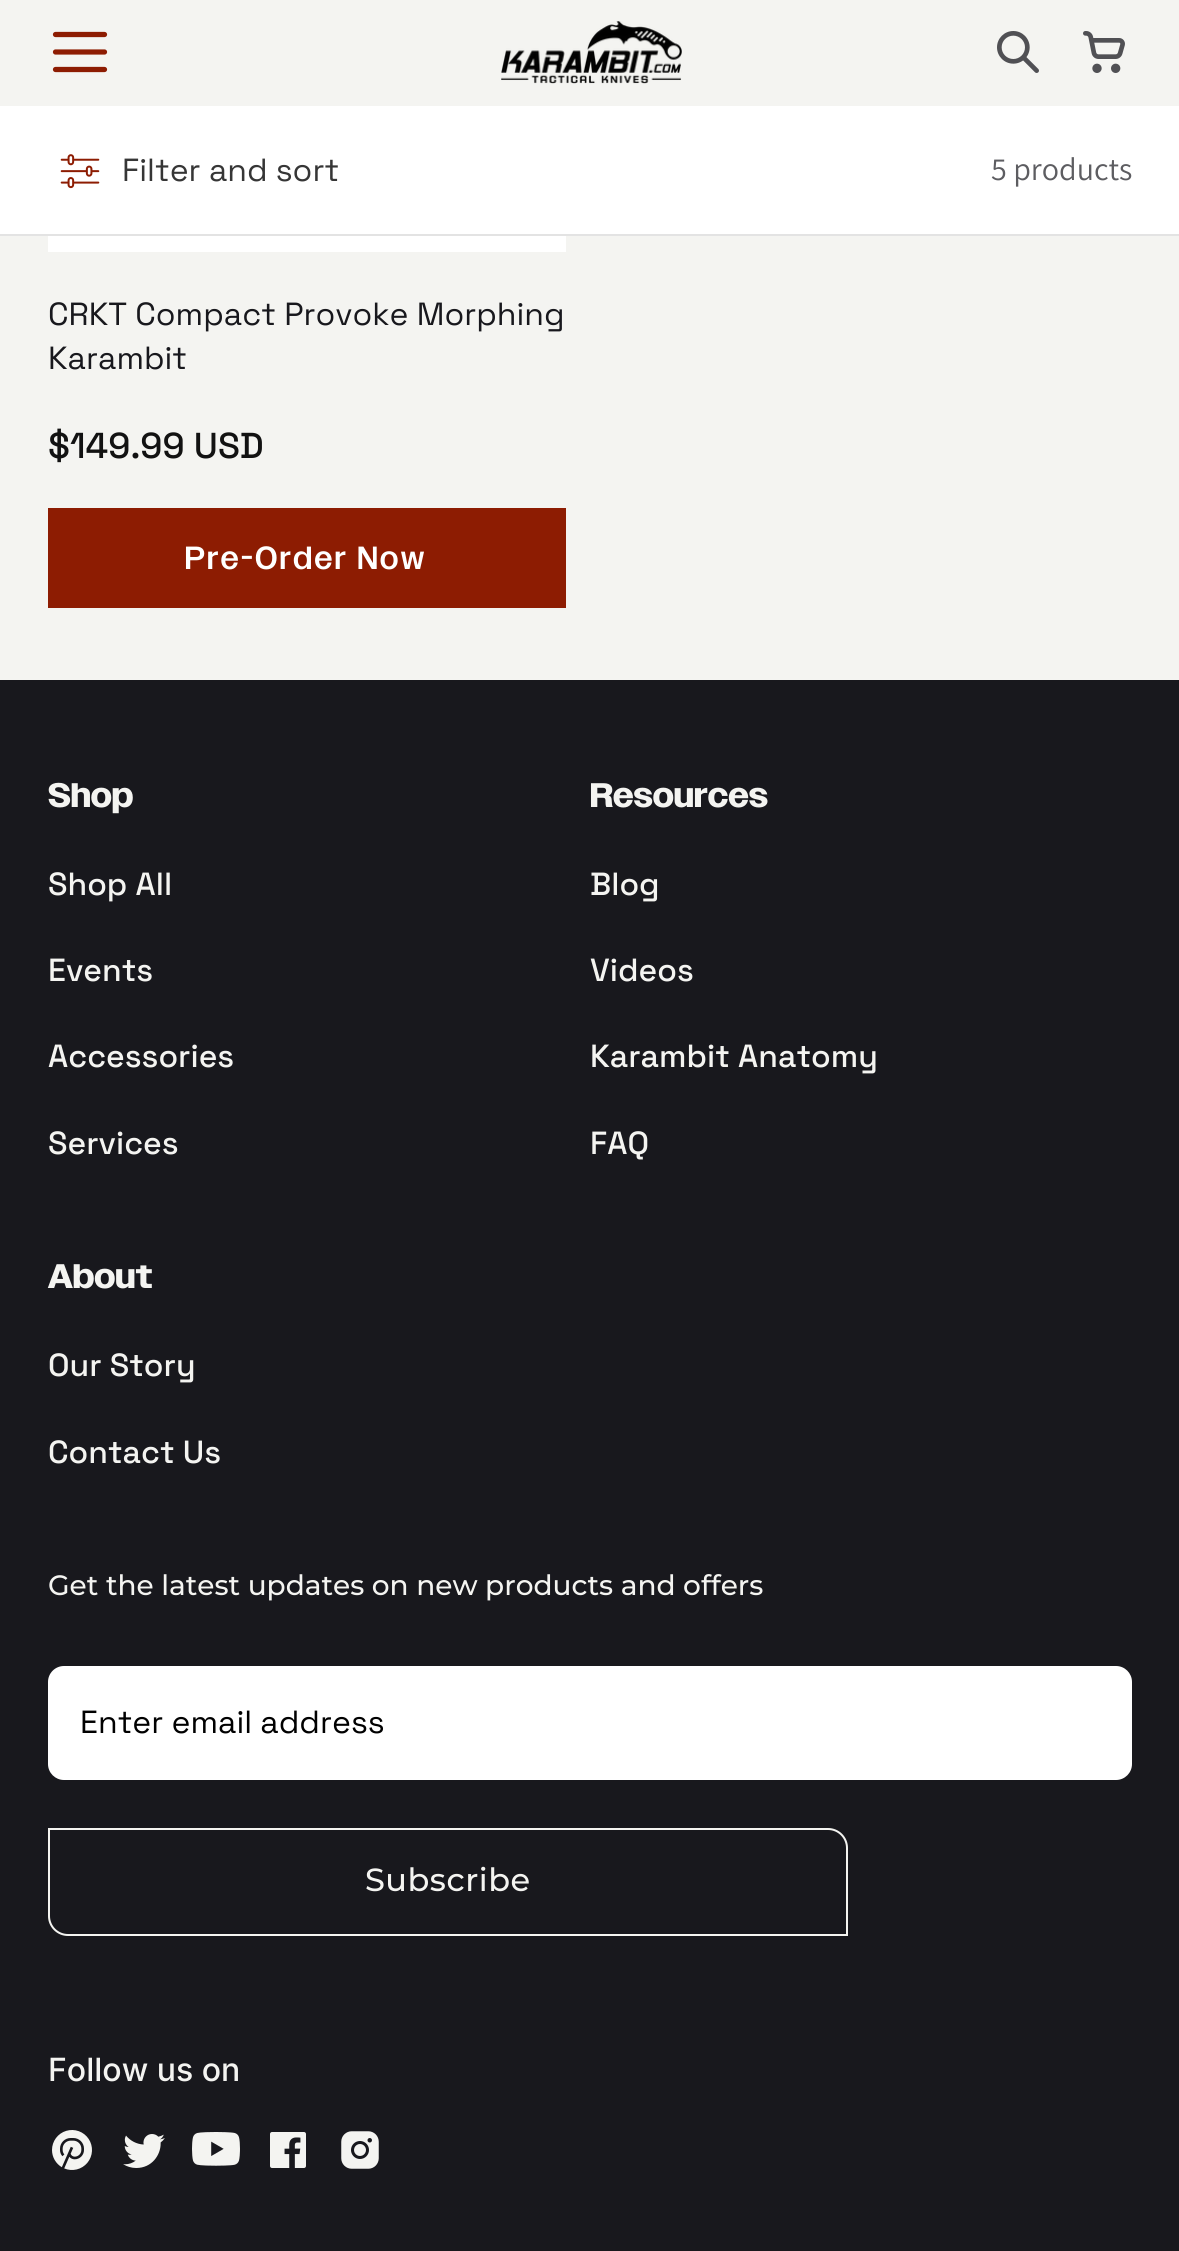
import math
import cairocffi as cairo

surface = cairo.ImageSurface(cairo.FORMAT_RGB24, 1179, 2251)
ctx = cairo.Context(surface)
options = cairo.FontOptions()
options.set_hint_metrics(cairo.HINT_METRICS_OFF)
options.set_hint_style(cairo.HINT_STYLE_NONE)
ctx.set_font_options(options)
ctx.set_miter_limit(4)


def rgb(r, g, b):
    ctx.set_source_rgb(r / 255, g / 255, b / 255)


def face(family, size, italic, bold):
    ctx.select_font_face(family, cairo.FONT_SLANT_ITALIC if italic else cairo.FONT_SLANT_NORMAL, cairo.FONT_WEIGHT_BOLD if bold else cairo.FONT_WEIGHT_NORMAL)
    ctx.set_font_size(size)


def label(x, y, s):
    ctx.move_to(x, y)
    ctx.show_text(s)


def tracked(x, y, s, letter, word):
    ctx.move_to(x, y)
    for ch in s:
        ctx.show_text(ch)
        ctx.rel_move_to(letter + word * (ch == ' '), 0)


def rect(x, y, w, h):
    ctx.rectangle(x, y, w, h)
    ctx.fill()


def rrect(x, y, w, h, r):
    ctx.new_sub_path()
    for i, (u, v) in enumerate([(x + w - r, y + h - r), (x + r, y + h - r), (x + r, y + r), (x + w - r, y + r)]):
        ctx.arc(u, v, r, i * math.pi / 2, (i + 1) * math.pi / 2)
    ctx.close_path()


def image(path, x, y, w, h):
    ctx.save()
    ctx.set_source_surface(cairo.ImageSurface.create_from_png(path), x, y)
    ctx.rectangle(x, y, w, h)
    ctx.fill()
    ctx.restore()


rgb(244, 244, 241)
ctx.paint()
ctx.new_path()
ctx.move_to(55.5, 69.5)
ctx.line_to(104.5, 69.5)
ctx.move_to(55.5, 52)
ctx.line_to(104.5, 52)
ctx.move_to(55.5, 34.5)
ctx.line_to(104.5, 34.5)
rgb(141, 28, 2)
ctx.set_line_width(5.2)
ctx.set_line_cap(cairo.LINE_CAP_ROUND)
ctx.set_line_join(cairo.LINE_JOIN_ROUND)
ctx.stroke()
image('image0.png', 501, 21, 181, 63)
image('image1.png', 997, 31, 42, 42)
image('image2.png', 1083, 31, 42, 42)
rgb(255, 255, 255)
rect(0, 106, 1179, 128)
rgb(227, 227, 227)
rect(0, 234, 1179, 2)
image('image3.png', 60, 154, 40, 35)
face('Space Grotesk', 32, 0, 0)
rgb(54, 54, 54)
label(122, 181, 'Filter and sort')
face('Assistant', 32, 0, 0)
rgb(93, 93, 97)
label(991, 180, '5 products')
image('image4.png', 48, 236, 518, 16)
face('Space Grotesk', 32, 0, 0)
rgb(24, 24, 29)
label(48, 325, 'CRKT Compact Provoke Morphing')
label(48, 369, 'Karambit')
face('Space Grotesk Medium', 36, 0, 0)
rgb(18, 18, 18)
label(48, 458, '$149.99 USD')
rgb(141, 28, 2)
rect(48, 508, 518, 100)
face('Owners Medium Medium', 32, 0, 0)
rgb(255, 255, 255)
tracked(185, 569, 'Pre-Order Now', 2.5, 0)
rgb(24, 24, 29)
rect(0, 680, 1179, 1571)
face('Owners', 34, 0, 1)
rgb(244, 244, 241)
label(48, 807, 'Shop')
face('Space Grotesk Medium', 32, 0, 0)
label(48, 895, 'Shop All')
label(48, 981, 'Events')
label(48, 1067, 'Accessories')
label(48, 1154, 'Services')
face('Owners', 34, 0, 1)
label(590, 807, 'Resources')
face('Space Grotesk Medium', 32, 0, 0)
label(590, 895, 'Blog')
label(590, 981, 'Videos')
label(590, 1067, 'Karambit Anatomy')
label(590, 1154, 'FAQ')
face('Owners', 34, 0, 1)
label(48, 1288, 'About')
face('Space Grotesk Medium', 32, 0, 0)
label(48, 1376, 'Our Story')
label(48, 1463, 'Contact Us')
face('Montserrat Thin', 28, 0, 0)
label(48, 1595, 'Get the latest updates on new products and offers')
rgb(255, 255, 255)
rrect(48, 1666, 1084, 114, 16)
ctx.fill()
face('Space Grotesk', 32, 0, 0)
rgb(0, 0, 0)
label(80, 1733, 'Enter email address')
ctx.new_path()
ctx.move_to(49, 1829)
ctx.line_to(828, 1829)
ctx.curve_to(838.5, 1829, 847, 1837.5, 847, 1848)
ctx.line_to(847, 1935)
ctx.line_to(68, 1935)
ctx.curve_to(57.5, 1935, 49, 1926.5, 49, 1916)
ctx.close_path()
rgb(244, 244, 241)
ctx.set_line_width(2)
ctx.set_line_cap(cairo.LINE_CAP_BUTT)
ctx.set_line_join(cairo.LINE_JOIN_MITER)
ctx.stroke()
face('Montserrat Thin', 32, 0, 0)
tracked(365, 1891, 'Subscribe', 0.5, 0)
face('Inter Medium', 32, 0, 0)
label(48, 2081, 'Follow us on')
image('image5.png', 52, 2130, 40, 40)
image('image6.png', 123, 2134, 42, 34)
image('image7.png', 192, 2132, 48, 34)
image('image8.png', 270, 2132, 36, 36)
image('image9.png', 341, 2131, 38, 38)
surface.write_to_png('render.png')
